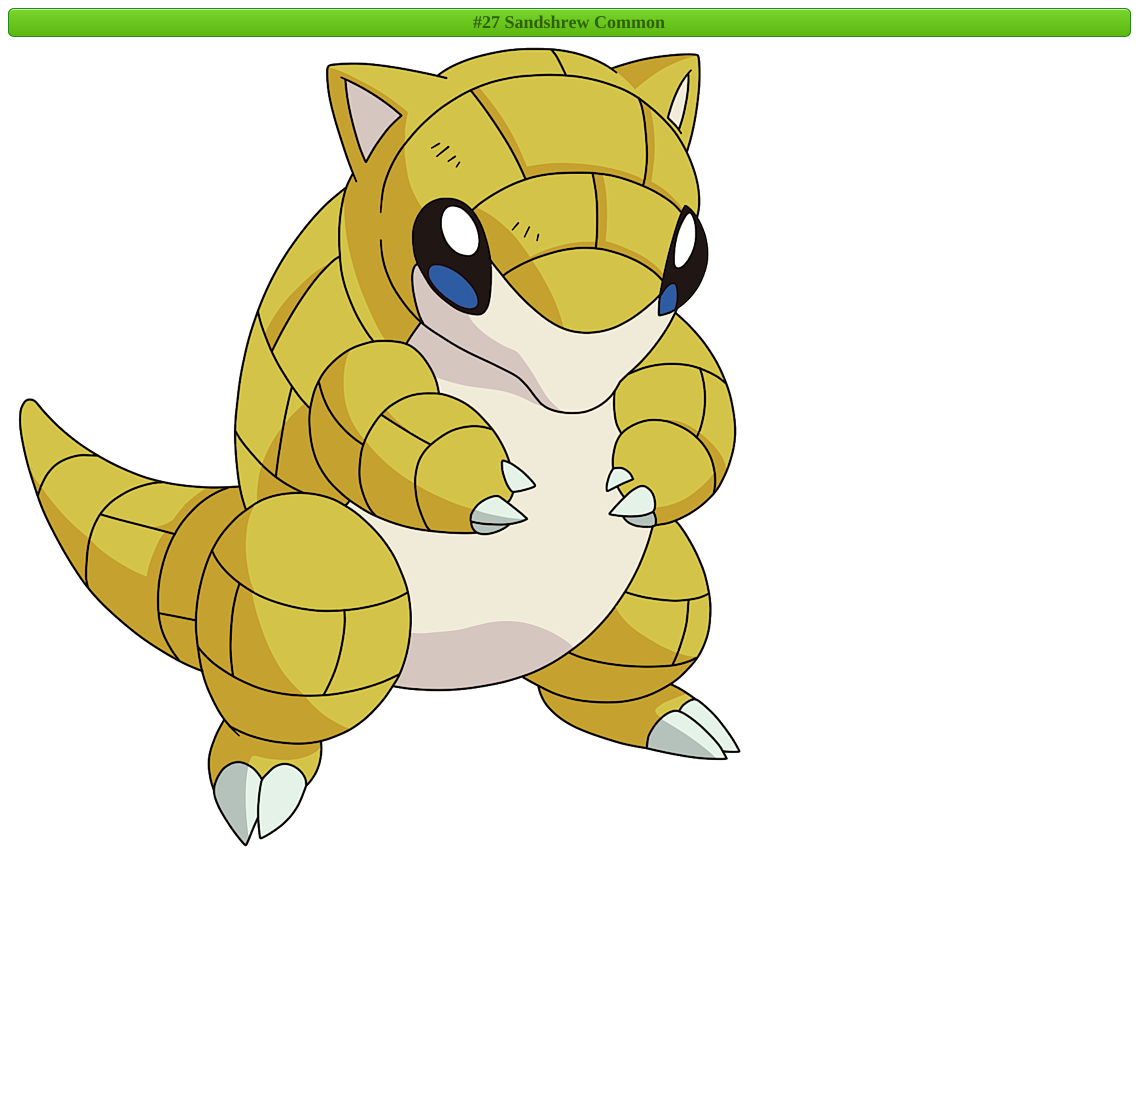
import math
import cairocffi as cairo

surface = cairo.ImageSurface(cairo.FORMAT_RGB24, 1139, 1105)
ctx = cairo.Context(surface)
options = cairo.FontOptions()
options.set_hint_metrics(cairo.HINT_METRICS_OFF)
options.set_hint_style(cairo.HINT_STYLE_NONE)
ctx.set_font_options(options)
ctx.set_miter_limit(4)


def rgb(r, g, b):
    ctx.set_source_rgb(r / 255, g / 255, b / 255)


def face(family, size, italic, bold):
    ctx.select_font_face(family, cairo.FONT_SLANT_ITALIC if italic else cairo.FONT_SLANT_NORMAL, cairo.FONT_WEIGHT_BOLD if bold else cairo.FONT_WEIGHT_NORMAL)
    ctx.set_font_size(size)


def label(x, y, s):
    ctx.move_to(x, y)
    ctx.show_text(s)


def rect(x, y, w, h):
    ctx.rectangle(x, y, w, h)
    ctx.fill()


def rrect(x, y, w, h, r):
    ctx.new_sub_path()
    for i, (u, v) in enumerate([(x + w - r, y + h - r), (x + r, y + h - r), (x + r, y + r), (x + w - r, y + r)]):
        ctx.arc(u, v, r, i * math.pi / 2, (i + 1) * math.pi / 2)
    ctx.close_path()


def image(path, x, y, w, h):
    ctx.save()
    ctx.set_source_surface(cairo.ImageSurface.create_from_png(path), x, y)
    ctx.rectangle(x, y, w, h)
    ctx.fill()
    ctx.restore()


rgb(255, 255, 255)
ctx.paint()
ctx.save()
rrect(8, 8, 1123, 29, 6)
ctx.clip()
gradient = cairo.LinearGradient(570, 9, 570, 36)
gradient.add_color_stop_rgba(0.05, 0.467, 0.831, 0.165, 1)
gradient.add_color_stop_rgba(1, 0.361, 0.722, 0.067, 1)
ctx.set_source(gradient)
rect(8, 9, 1123, 27)
ctx.restore()
rgb(202, 239, 171)
ctx.new_path()
ctx.move_to(14, 10)
ctx.line_to(1125, 10)
ctx.curve_to(1128, 10, 1130, 12, 1130, 15)
ctx.curve_to(1130, 12, 1128, 9, 1125, 9)
ctx.line_to(14, 9)
ctx.curve_to(11, 9, 9, 12, 9, 15)
ctx.curve_to(9, 12, 11, 10, 14, 10)
ctx.close_path()
ctx.fill()
rrect(8.5, 8.5, 1122, 28, 5.5)
rgb(38, 138, 22)
ctx.set_line_width(1)
ctx.stroke()
face('Liberation Serif', 18, 0, 1)
rgb(48, 97, 8)
label(473, 28, '#27 Sandshrew Common')
image('image0.png', 18, 47, 723, 800)
surface.write_to_png('render.png')
